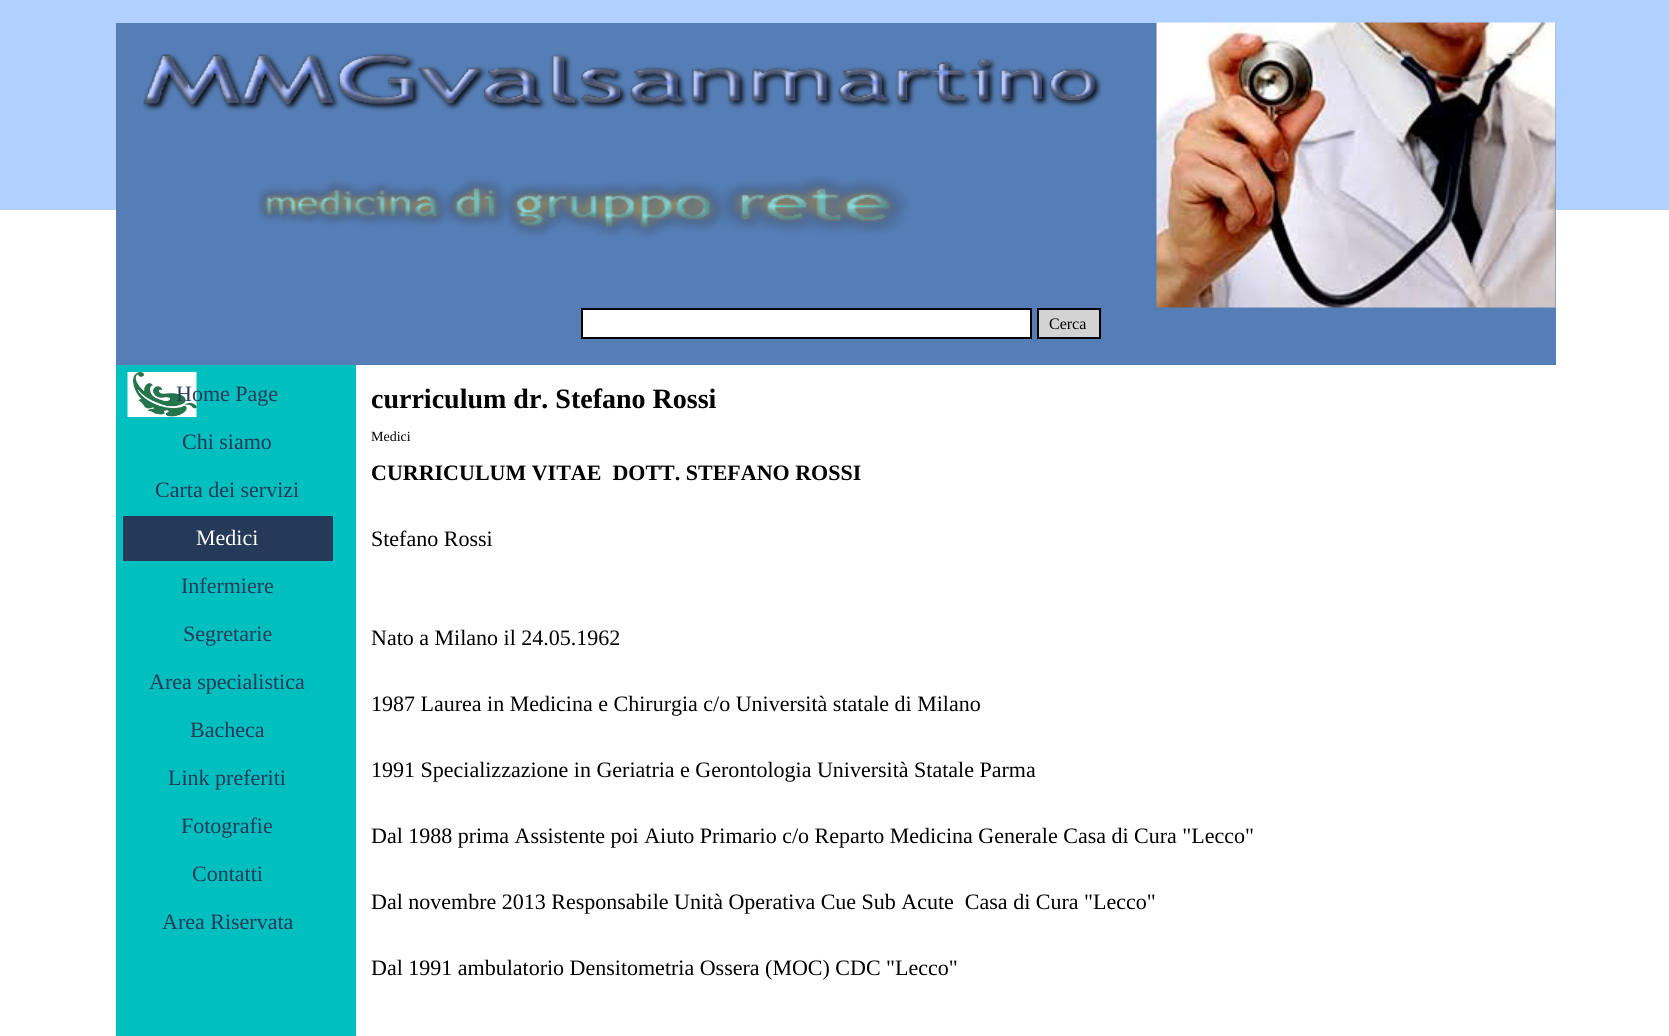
import math
import cairocffi as cairo

surface = cairo.ImageSurface(cairo.FORMAT_RGB24, 1669, 1036)
ctx = cairo.Context(surface)
options = cairo.FontOptions()
options.set_hint_metrics(cairo.HINT_METRICS_OFF)
options.set_hint_style(cairo.HINT_STYLE_NONE)
ctx.set_font_options(options)
ctx.set_miter_limit(4)


def rgb(r, g, b):
    ctx.set_source_rgb(r / 255, g / 255, b / 255)


def face(family, size, italic, bold):
    ctx.select_font_face(family, cairo.FONT_SLANT_ITALIC if italic else cairo.FONT_SLANT_NORMAL, cairo.FONT_WEIGHT_BOLD if bold else cairo.FONT_WEIGHT_NORMAL)
    ctx.set_font_size(size)


def label(x, y, s):
    ctx.move_to(x, y)
    ctx.show_text(s)


def rect(x, y, w, h):
    ctx.rectangle(x, y, w, h)
    ctx.fill()


def image(path, x, y, w, h):
    ctx.save()
    ctx.set_source_surface(cairo.ImageSurface.create_from_png(path), x, y)
    ctx.rectangle(x, y, w, h)
    ctx.fill()
    ctx.restore()


rgb(255, 255, 255)
ctx.paint()
rgb(176, 209, 255)
rect(0, 0, 1669, 210)
rgb(86, 126, 182)
rect(116, 23, 1440, 342)
image('image0.png', 1156, 22, 400, 286)
image('image1.png', 143, 52, 960, 60)
image('image2.png', 257, 176, 653, 61)
rgb(255, 255, 255)
ctx.rectangle(582, 309, 449, 29)
ctx.fill_preserve()
rgb(0, 0, 0)
ctx.stroke()
rgb(211, 211, 211)
ctx.rectangle(1038, 309, 62, 29)
ctx.fill_preserve()
rgb(0, 0, 0)
ctx.stroke()
face('Liberation Serif', 16, 0, 0)
label(1049, 329, 'Cerca')
rgb(0, 191, 191)
rect(116, 365, 240, 671)
image('image3.png', 127, 372, 70, 45)
face('Liberation Serif', 22, 0, 0)
rgb(37, 58, 88)
label(176, 401, 'Home Page')
label(182, 449, 'Chi siamo')
label(155, 497, 'Carta dei servizi')
image('image4.png', 123, 516, 210, 45)
rgb(255, 255, 255)
label(196, 545, 'Medici')
rgb(37, 58, 88)
label(181, 593, 'Infermiere')
label(183, 641, 'Segretarie')
label(149, 689, 'Area specialistica')
label(190, 737, 'Bacheca')
label(168, 785, 'Link preferiti')
label(181, 833, 'Fotografie')
label(192, 881, 'Contatti')
label(162, 929, 'Area Riservata')
face('Liberation Serif', 28, 0, 1)
rgb(0, 0, 0)
label(371, 408, 'curriculum dr. Stefano Rossi')
face('Liberation Serif', 14, 0, 0)
label(371, 441, 'Medici')
face('Liberation Serif', 22, 0, 1)
label(371, 480, 'CURRICULUM VITAE  DOTT. STEFANO ROSSI')
face('Liberation Serif', 22, 0, 0)
label(371, 546, 'Stefano Rossi')
label(371, 645, 'Nato a Milano il 24.05.1962')
label(371, 711, '1987 Laurea in Medicina e Chirurgia c/o Università statale di Milano')
label(371, 777, '1991 Specializzazione in Geriatria e Gerontologia Università Statale Parma')
label(371, 843, 'Dal 1988 prima Assistente poi Aiuto Primario c/o Reparto Medicina Generale Casa di Cura "Lecco"')
label(371, 909, 'Dal novembre 2013 Responsabile Unità Operativa Cue Sub Acute  Casa di Cura "Lecco"')
label(371, 975, 'Dal 1991 ambulatorio Densitometria Ossera (MOC) CDC "Lecco"')
surface.write_to_png('render.png')
